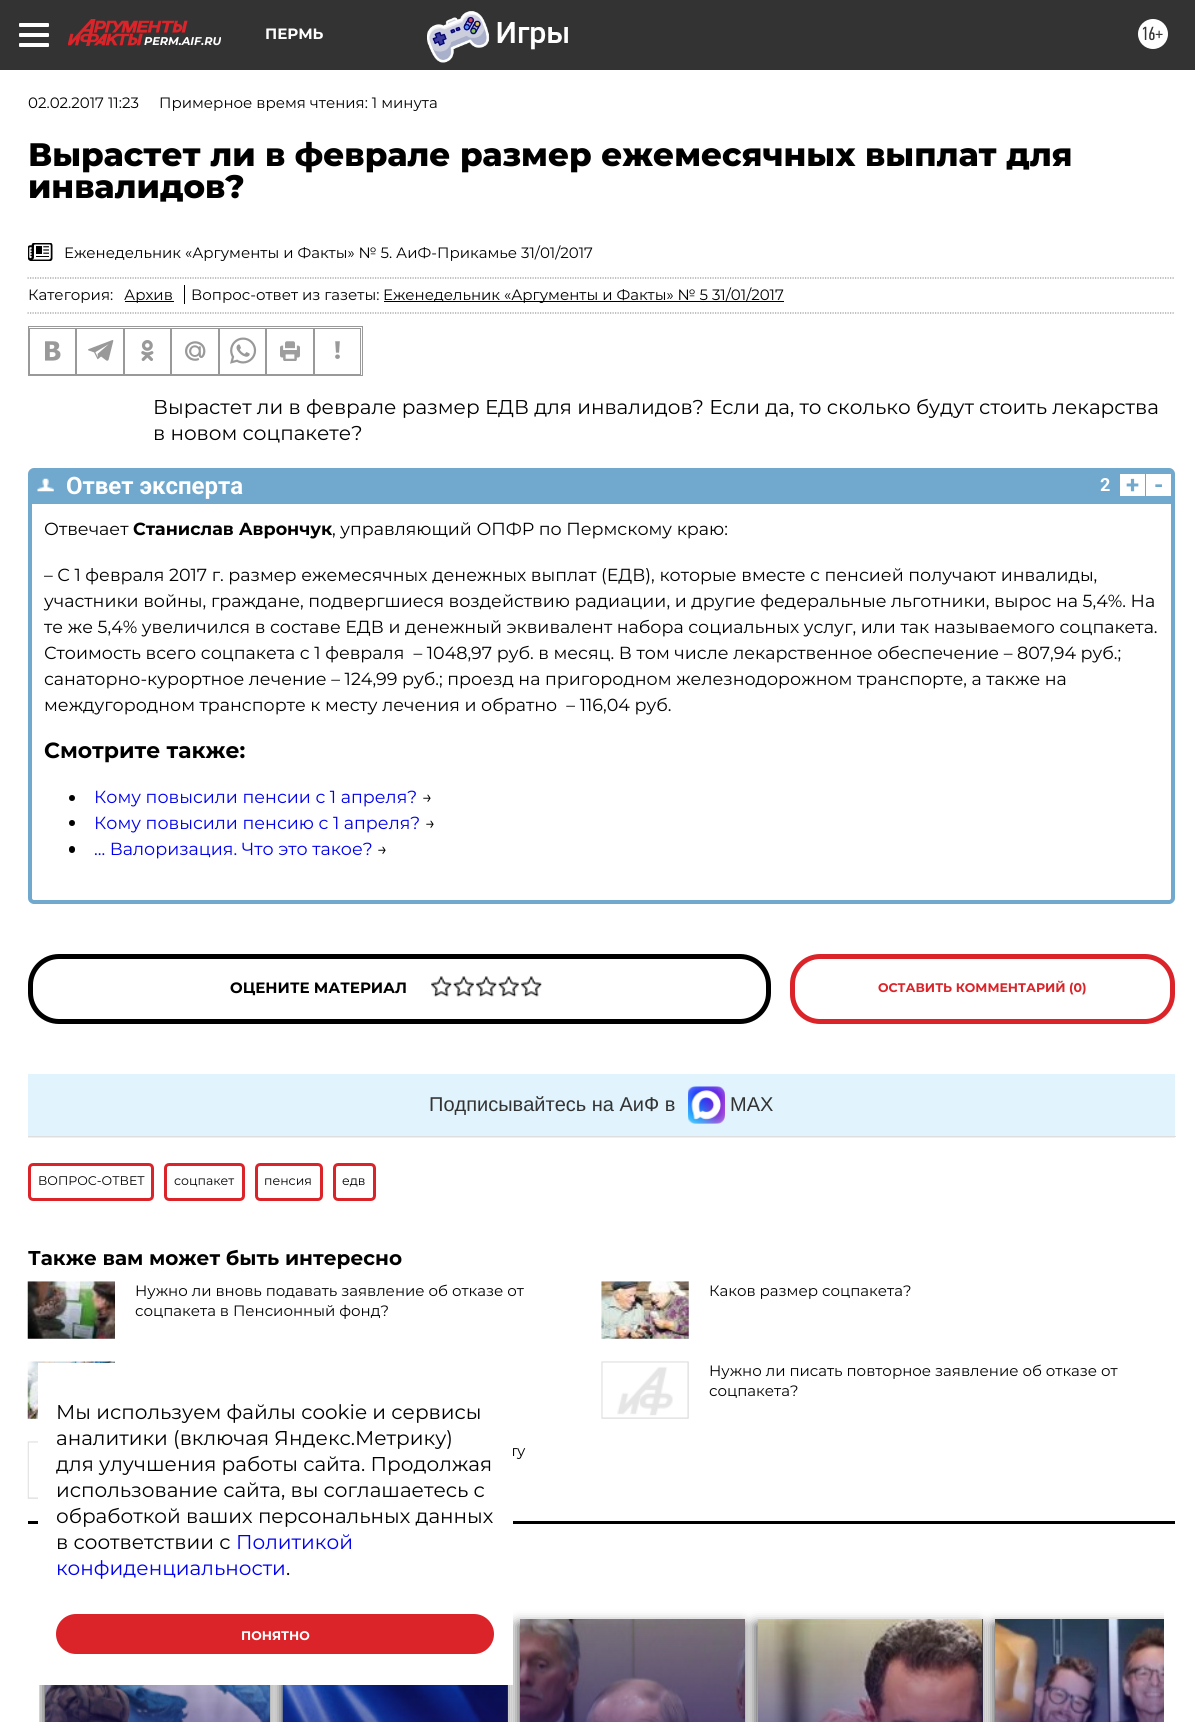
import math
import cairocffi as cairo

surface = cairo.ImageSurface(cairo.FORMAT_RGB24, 1195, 1722)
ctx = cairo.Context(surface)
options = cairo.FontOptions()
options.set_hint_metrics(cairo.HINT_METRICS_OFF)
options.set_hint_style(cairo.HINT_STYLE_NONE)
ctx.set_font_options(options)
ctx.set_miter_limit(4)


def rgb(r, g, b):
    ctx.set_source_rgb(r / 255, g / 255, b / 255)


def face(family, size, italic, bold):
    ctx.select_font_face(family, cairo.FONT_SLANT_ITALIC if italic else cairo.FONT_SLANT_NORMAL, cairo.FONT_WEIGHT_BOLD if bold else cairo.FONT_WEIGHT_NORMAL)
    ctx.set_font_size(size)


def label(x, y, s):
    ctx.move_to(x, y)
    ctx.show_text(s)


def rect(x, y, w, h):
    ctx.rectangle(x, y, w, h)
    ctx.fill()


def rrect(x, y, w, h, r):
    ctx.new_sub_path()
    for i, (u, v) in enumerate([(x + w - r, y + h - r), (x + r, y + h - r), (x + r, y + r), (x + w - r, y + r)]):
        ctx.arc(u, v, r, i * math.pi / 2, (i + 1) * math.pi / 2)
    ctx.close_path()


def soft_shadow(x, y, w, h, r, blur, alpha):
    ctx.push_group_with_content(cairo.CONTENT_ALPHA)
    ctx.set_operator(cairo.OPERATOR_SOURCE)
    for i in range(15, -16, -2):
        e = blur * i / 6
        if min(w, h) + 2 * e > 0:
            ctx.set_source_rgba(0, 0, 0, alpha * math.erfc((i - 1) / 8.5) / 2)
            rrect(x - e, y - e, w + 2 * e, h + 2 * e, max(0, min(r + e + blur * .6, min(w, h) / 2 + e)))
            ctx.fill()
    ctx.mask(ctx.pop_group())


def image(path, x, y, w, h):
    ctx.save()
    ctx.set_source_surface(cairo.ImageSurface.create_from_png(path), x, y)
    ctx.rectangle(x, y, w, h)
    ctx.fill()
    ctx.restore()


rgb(255, 255, 255)
ctx.paint()
rgb(51, 51, 51)
rect(0, 0, 1195, 70)
rgb(255, 255, 255)
rrect(19, 23, 30, 4, 1)
ctx.fill()
rrect(19, 33, 30, 4, 1)
ctx.fill()
rrect(19, 43, 30, 4, 1)
ctx.fill()
face('Montserrat', 15, 0, 1)
label(265, 39, 'ПЕРМЬ')
image('image0.png', 427, 11, 141, 52)
ctx.arc(1153, 34, 15, 0, 2 * math.pi)
ctx.fill()
face('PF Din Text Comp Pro', 19, 0, 0)
rgb(51, 51, 51)
label(1141, 40, '16+')
image('image1.png', 68, 19, 120, 27)
face('Montserrat', 11.25, 1, 1)
rgb(255, 255, 255)
label(144, 45, 'PERM.AIF.RU')
face('Montserrat', 15, 0, 0)
rgb(0, 0, 0)
label(28, 108, '02.02.2017 11:23')
label(159, 108, 'Примерное время чтения: 1 минута')
face('Montserrat ExtraBold', 32.5, 0, 0)
label(28, 166, 'Вырастет ли в феврале размер ежемесячных выплат для')
label(28, 198, 'инвалидов?')
image('image2.png', 28, 243, 25, 18)
face('Montserrat', 15, 0, 0)
label(64, 258, 'Еженедельник «Аргументы и Факты» № 5. АиФ-Прикамье 31/01/2017')
ctx.new_path()
ctx.move_to(27.5, 278)
ctx.line_to(1175, 278)
rgb(153, 153, 153)
ctx.set_line_width(1.2)
ctx.set_dash([1.25, 1.25])
ctx.stroke()
ctx.new_path()
ctx.move_to(27.5, 313)
ctx.line_to(1175, 313)
ctx.stroke()
rgb(0, 0, 0)
label(28, 300, 'Категория:')
rect(125, 301, 49, 1)
label(124, 300, 'Архив')
label(191, 300, 'Вопрос-ответ из газеты:')
rect(184, 285, 1, 19)
rect(384, 301, 400, 1)
label(383, 300, 'Еженедельник «Аргументы и Факты» № 5 31/01/2017')
ctx.rectangle(28.5, 326.5, 334, 49)
rgb(153, 153, 153)
ctx.set_line_width(1)
ctx.set_dash([])
ctx.stroke()
ctx.rectangle(29.5, 328.5, 46, 46)
ctx.stroke()
image('image3.png', 45, 341, 16, 20)
ctx.rectangle(76.5, 328.5, 47, 46)
ctx.stroke()
image('image4.png', 88, 340, 26, 21)
ctx.rectangle(124.5, 328.5, 46, 46)
ctx.stroke()
image('image5.png', 141, 340, 13, 21)
ctx.rectangle(171.5, 328.5, 47, 46)
ctx.stroke()
image('image6.png', 185, 341, 21, 20)
ctx.rectangle(219.5, 328.5, 46, 46)
ctx.stroke()
image('image7.png', 230, 337, 27, 27)
ctx.rectangle(266.5, 328.5, 47, 46)
ctx.stroke()
image('image8.png', 280, 341, 20, 20)
ctx.rectangle(314.5, 328.5, 46, 46)
ctx.stroke()
image('image9.png', 335, 341, 5, 18)
face('Montserrat', 20, 0, 0)
rgb(0, 0, 0)
label(153, 414, 'Вырастет ли в феврале размер ЕДВ для инвалидов? Если да, то сколько будут стоить лекарства')
label(153, 440, 'в новом соцпакете?')
rrect(30, 470, 1143, 432, 4)
rgb(112, 168, 206)
ctx.set_line_width(4)
ctx.stroke()
ctx.new_path()
ctx.move_to(33.5, 471)
ctx.line_to(1168.5, 471)
ctx.curve_to(1170, 471, 1171, 472, 1171, 473.5)
ctx.line_to(1171, 504)
ctx.line_to(31, 504)
ctx.line_to(31, 473.5)
ctx.curve_to(31, 472, 32, 471, 33.5, 471)
ctx.close_path()
ctx.fill()
image('image10.png', 37, 478, 17, 14)
face('Roboto', 24, 0, 1)
rgb(255, 255, 255)
label(66, 494, 'Ответ эксперта')
face('Roboto', 18, 0, 1)
label(1100, 491, '2')
rect(1120, 474, 25, 22)
face('Roboto', 24, 0, 1)
rgb(112, 168, 206)
label(1126, 493, '+')
rgb(255, 255, 255)
rect(1146, 474, 25, 22)
rgb(112, 168, 206)
label(1154, 493, '-')
face('Montserrat', 17.5, 0, 0)
rgb(0, 0, 0)
label(44, 535, 'Отвечает')
face('Montserrat', 17.5, 0, 1)
label(133, 535, 'Станислав Аврончук')
face('Montserrat', 17.5, 0, 0)
label(332, 535, ', управляющий ОПФР по Пермскому краю:')
label(44, 581, '– С 1 февраля 2017 г. размер ежемесячных денежных выплат (ЕДВ), которые вместе с пенсией получают инвалиды,')
label(44, 607, 'участники войны, граждане, подвергшиеся воздействию радиации, и другие федеральные льготники, вырос на 5,4%. На')
label(44, 633, 'те же 5,4% увеличился в составе ЕДВ и денежный эквивалент набора социальных услуг, или так называемого соцпакета.')
label(44, 659, 'Стоимость всего соцпакета с 1 февраля  – 1048,97 руб. в месяц. В том числе лекарственное обеспечение – 807,94 руб.;')
label(44, 685, 'санаторно-курортное лечение – 124,99 руб.; проезд на пригородном железнодорожном транспорте, а также на')
label(44, 711, 'междугородном транспорте к месту лечения и обратно  – 116,04 руб.')
face('Montserrat', 21.9, 0, 1)
label(44, 758, 'Смотрите также:')
ctx.new_path()
ctx.arc(72, 798, 3, 0, 2 * math.pi)
ctx.fill()
face('Montserrat', 17.5, 0, 0)
rgb(0, 0, 238)
label(94, 803, 'Кому повысили пенсии с 1 апреля?')
rgb(0, 0, 0)
label(422, 803, '→')
ctx.new_path()
ctx.arc(72, 823, 3, 0, 2 * math.pi)
ctx.fill()
rgb(0, 0, 238)
label(94, 829, 'Кому повысили пенсию с 1 апреля?')
rgb(0, 0, 0)
label(425, 829, '→')
rrect(69, 846, 6, 7, 3)
ctx.fill()
rgb(0, 0, 238)
label(94, 855, '... Валоризация. Что это такое?')
rgb(0, 0, 0)
label(377, 855, '→')
rrect(30.5, 956.5, 738, 65, 28.5)
ctx.set_line_width(5)
ctx.stroke()
face('Montserrat', 15, 0, 1)
label(230, 993, 'ОЦЕНИТЕ МАТЕРИАЛ')
image('image11.png', 431, 976, 21, 21)
image('image12.png', 453, 976, 21, 21)
image('image11.png', 476, 976, 21, 21)
image('image12.png', 498, 976, 21, 21)
image('image11.png', 521, 976, 21, 21)
rrect(792.5, 956.5, 380, 65, 27.5)
rgb(218, 36, 41)
ctx.stroke()
face('Montserrat', 12.5, 0, 1)
label(878, 992, 'ОСТАВИТЬ КОММЕНТАРИЙ (0)')
rgb(225, 243, 252)
rect(28, 1074, 1147, 64)
rgb(222, 222, 222)
rect(28, 1136, 1148, 1)
face('Liberation Sans', 20, 0, 0)
rgb(51, 51, 51)
label(429, 1111, 'Подписывайтесь на АиФ в')
image('image13.png', 688, 1086, 37, 38)
label(730, 1111, 'MAX')
rrect(29.5, 1164.5, 123, 35, 3.5)
rgb(218, 36, 41)
ctx.set_line_width(3)
ctx.stroke()
face('Montserrat', 12.5, 0, 0)
rgb(0, 0, 0)
label(38, 1185, 'ВОПРОС-ОТВЕТ')
rrect(165.5, 1164.5, 78, 35, 3.5)
rgb(218, 36, 41)
ctx.stroke()
rgb(0, 0, 0)
label(174, 1185, 'соцпакет')
rrect(256.5, 1164.5, 65, 35, 3.5)
rgb(218, 36, 41)
ctx.stroke()
rgb(0, 0, 0)
label(264, 1185, 'пенсия')
rrect(334.5, 1164.5, 40, 35, 3.5)
rgb(218, 36, 41)
ctx.stroke()
rgb(0, 0, 0)
label(342, 1185, 'едв')
face('Montserrat', 20, 0, 1)
label(28, 1265, 'Также вам может быть интересно')
rect(28, 1521, 1147, 3)
image('image14.png', 27, 1281, 88, 58)
face('Montserrat', 15, 0, 0)
label(135, 1296, 'Нужно ли вновь подавать заявление об отказе от')
label(135, 1316, 'соцпакета в Пенсионный фонд?')
image('image15.png', 601, 1281, 88, 58)
label(709, 1296, 'Каков размер соцпакета?')
image('image16.png', 27, 1361, 88, 58)
image('image17.png', 601, 1361, 88, 58)
label(709, 1376, 'Нужно ли писать повторное заявление об отказе от')
label(709, 1396, 'соцпакета?')
image('image18.png', 27, 1441, 11, 58)
label(510, 1456, 'ту')
ctx.save()
ctx.rectangle(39, 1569, 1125, 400)
ctx.clip()
rgb(86, 84, 84)
soft_shadow(43, 1624, 225, 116, 0, 6, 1)
ctx.restore()
image('image19.png', 45, 1685, 225, 37)
rgb(86, 84, 84)
soft_shadow(280, 1624, 225, 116, 0, 6, 1)
gradient = cairo.LinearGradient(158, 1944, 158, 1619)
gradient.add_color_stop_rgba(0.3, 0.118, 0.051, 0.392, 1)
gradient.add_color_stop_rgba(1, 0.118, 0.051, 0.392, 0)
ctx.set_source(gradient)
rect(45, 1685, 225, 37)
rgb(51, 51, 51)
rect(507, 1685, 1, 37)
image('image20.png', 282, 1685, 226, 37)
rgb(86, 84, 84)
soft_shadow(518, 1624, 225, 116, 0, 6, 1)
gradient = cairo.LinearGradient(395, 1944, 395, 1619)
gradient.add_color_stop_rgba(0.3, 0.118, 0.051, 0.392, 1)
gradient.add_color_stop_rgba(1, 0.118, 0.051, 0.392, 0)
ctx.set_source(gradient)
rect(283, 1685, 225, 37)
image('image21.png', 520, 1619, 225, 103)
rgb(86, 84, 84)
soft_shadow(755, 1624, 225, 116, 0, 6, 1)
gradient = cairo.LinearGradient(633, 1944, 633, 1619)
gradient.add_color_stop_rgba(0.3, 0.118, 0.051, 0.392, 1)
gradient.add_color_stop_rgba(1, 0.118, 0.051, 0.392, 0)
ctx.set_source(gradient)
rect(520, 1624, 225, 98)
rgb(51, 51, 51)
rect(982, 1619, 1, 103)
image('image22.png', 757, 1619, 226, 103)
ctx.save()
ctx.rectangle(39, 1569, 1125, 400)
ctx.clip()
rgb(86, 84, 84)
soft_shadow(993, 1624, 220, 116, 0, 6, 1)
ctx.restore()
gradient = cairo.LinearGradient(870, 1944, 870, 1619)
gradient.add_color_stop_rgba(0.3, 0.118, 0.051, 0.392, 1)
gradient.add_color_stop_rgba(1, 0.118, 0.051, 0.392, 0)
ctx.set_source(gradient)
rect(758, 1624, 225, 98)
image('image23.png', 995, 1619, 169, 103)
rgb(255, 255, 255)
rect(38, 1363, 475, 322)
face('Montserrat', 20, 0, 0)
rgb(0, 0, 0)
label(56, 1419, 'Мы используем файлы cookie и сервисы')
label(56, 1445, 'аналитики (включая Яндекс.Метрику)')
label(56, 1471, 'для улучшения работы сайта. Продолжая')
label(56, 1497, 'использование сайта, вы соглашаетесь с')
label(56, 1523, 'обработкой ваших персональных данных')
label(56, 1549, 'в соответствии с')
rgb(0, 0, 238)
label(236, 1549, 'Политикой')
label(56, 1575, 'конфиденциальности')
rgb(0, 0, 0)
label(286, 1575, '.')
rgb(218, 36, 41)
rrect(57.5, 1615.5, 435, 37, 18.5)
ctx.fill_preserve()
ctx.stroke()
face('Montserrat', 12.5, 0, 1)
rgb(255, 255, 255)
label(241, 1640, 'ПОНЯТНО')
surface.write_to_png('render.png')
